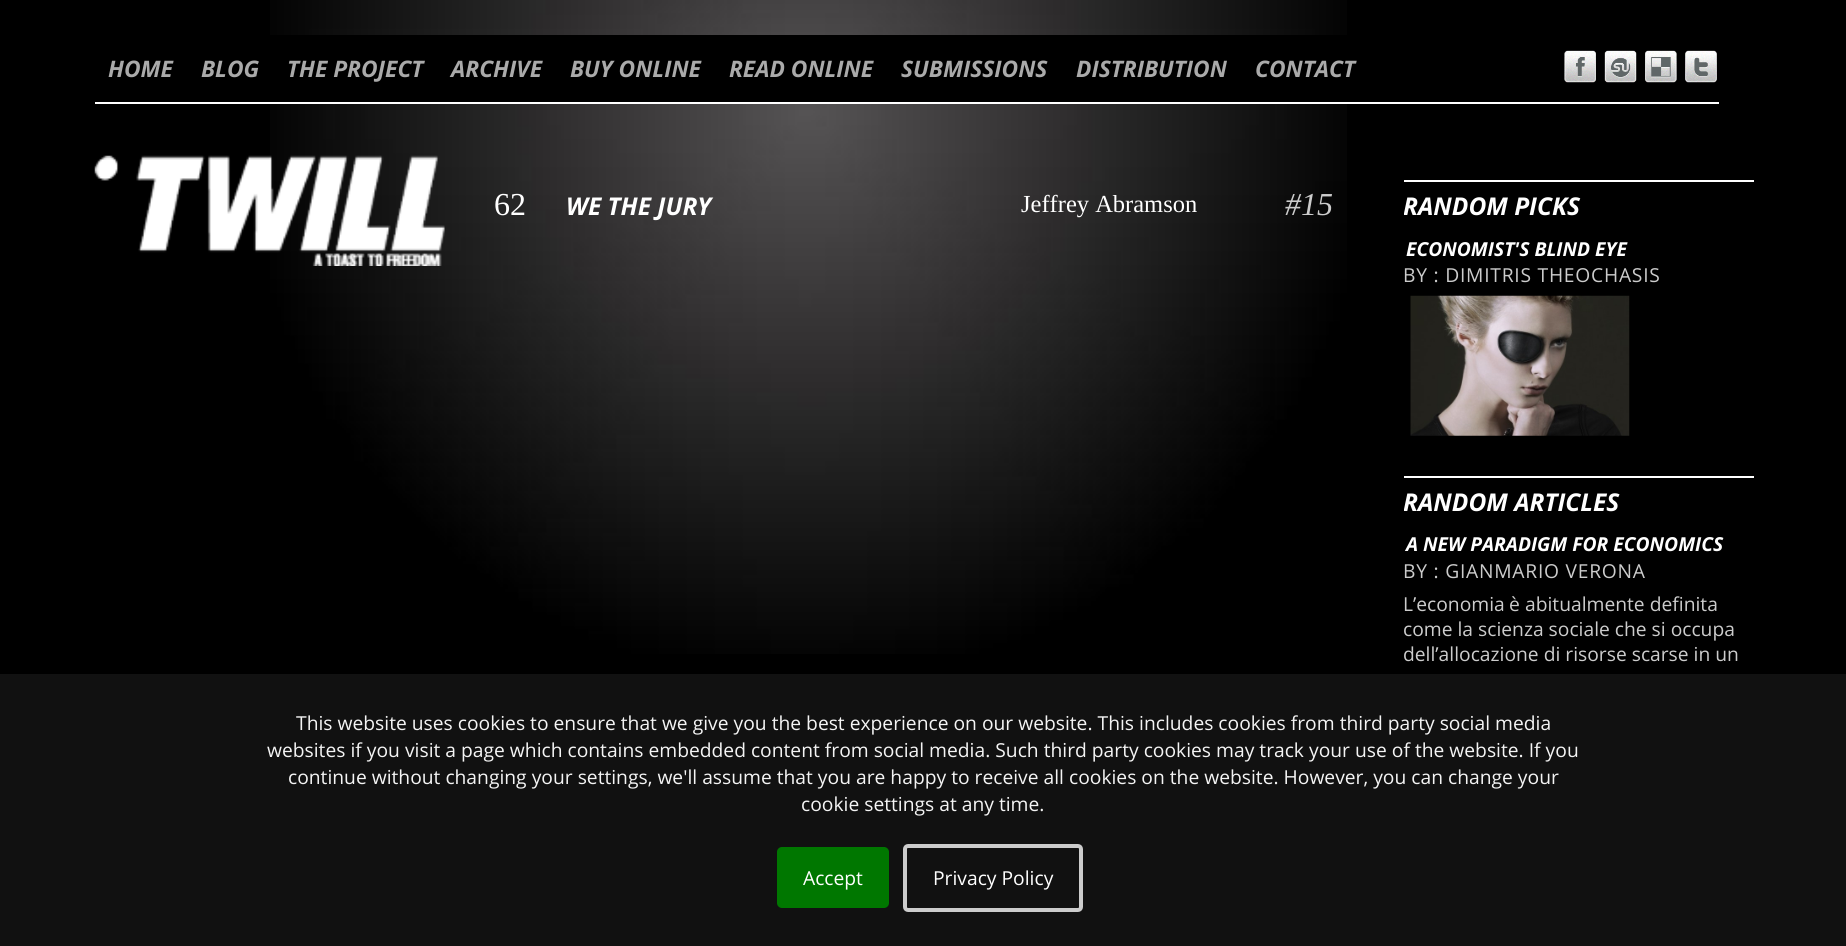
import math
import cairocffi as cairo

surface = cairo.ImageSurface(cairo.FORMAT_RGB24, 1846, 946)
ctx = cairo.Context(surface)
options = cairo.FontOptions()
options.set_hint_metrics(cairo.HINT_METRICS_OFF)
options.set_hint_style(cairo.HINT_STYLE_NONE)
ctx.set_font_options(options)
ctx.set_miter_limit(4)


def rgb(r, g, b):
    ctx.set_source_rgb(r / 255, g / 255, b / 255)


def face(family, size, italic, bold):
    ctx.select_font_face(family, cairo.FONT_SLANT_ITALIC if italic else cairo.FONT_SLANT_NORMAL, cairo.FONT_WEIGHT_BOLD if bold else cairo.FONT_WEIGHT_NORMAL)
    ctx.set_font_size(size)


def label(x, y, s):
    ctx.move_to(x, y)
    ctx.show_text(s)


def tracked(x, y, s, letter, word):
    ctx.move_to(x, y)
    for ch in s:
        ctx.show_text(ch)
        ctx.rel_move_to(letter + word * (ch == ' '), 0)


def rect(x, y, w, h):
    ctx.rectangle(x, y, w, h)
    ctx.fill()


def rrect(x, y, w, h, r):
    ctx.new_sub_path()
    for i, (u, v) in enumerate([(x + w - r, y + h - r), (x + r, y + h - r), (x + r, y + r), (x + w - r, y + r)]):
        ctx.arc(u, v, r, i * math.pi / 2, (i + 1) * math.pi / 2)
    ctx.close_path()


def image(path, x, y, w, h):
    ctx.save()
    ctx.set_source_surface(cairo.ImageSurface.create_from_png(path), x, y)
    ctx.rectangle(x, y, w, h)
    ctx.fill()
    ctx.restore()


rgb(0, 0, 0)
ctx.paint()
image('image0.png', 270, 0, 1077, 654)
rgb(0, 0, 0)
rect(270, 35, 1077, 67)
rgb(255, 255, 255)
rect(95, 102, 1624, 2)
face('Open Sans', 22.75, 1, 1)
rgb(170, 170, 170)
label(108, 77, 'HOME')
label(201, 77, 'BLOG')
label(287, 77, 'THE PROJECT')
label(451, 77, 'ARCHIVE')
label(570, 77, 'BUY ONLINE')
label(729, 77, 'READ ONLINE')
label(901, 77, 'SUBMISSIONS')
label(1076, 77, 'DISTRIBUTION')
label(1255, 77, 'CONTACT')
image('image1.png', 1564, 50, 32, 33)
image('image2.png', 1604, 50, 33, 33)
image('image3.png', 1645, 50, 32, 33)
image('image4.png', 1685, 50, 32, 33)
image('image5.png', 94, 155, 351, 111)
face('Liberation Serif', 32, 0, 0)
rgb(255, 255, 255)
label(494, 215, '62')
face('Open Sans', 24.5, 1, 1)
label(566, 215, 'WE THE JURY')
face('Liberation Serif', 24.5, 0, 0)
label(1021, 212, 'Jeffrey Abramson')
face('Liberation Serif', 32, 1, 0)
rgb(204, 204, 204)
label(1285, 215, '#15')
rgb(255, 255, 255)
rect(1404, 180, 350, 2)
ctx.save()
ctx.rectangle(1404, 156, 350, 595)
ctx.clip()
face('Open Sans', 24.5, 1, 1)
label(1403, 215, 'RANDOM PICKS')
ctx.restore()
face('Open Sans', 19.25, 1, 1)
label(1406, 256, 'ECONOMIST\'S BLIND EYE')
face('Open Sans', 19.25, 0, 0)
rgb(204, 204, 204)
tracked(1403, 282, 'BY : DIMITRIS THEOCHASIS', 0.75, 0)
image('image6.png', 1410, 295, 220, 141)
rgb(255, 255, 255)
rect(1404, 476, 350, 2)
ctx.save()
ctx.rectangle(1404, 156, 350, 595)
ctx.clip()
face('Open Sans', 24.5, 1, 1)
label(1403, 511, 'RANDOM ARTICLES')
ctx.restore()
face('Open Sans', 19.25, 1, 1)
label(1406, 551, 'A NEW PARADIGM FOR ECONOMICS')
face('Open Sans', 19.25, 0, 0)
rgb(204, 204, 204)
tracked(1403, 578, 'BY : GIANMARIO VERONA', 0.75, 0)
label(1403, 611, 'L’economia')
face('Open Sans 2', 19.25, 0, 0)
label(1509, 611, 'è')
face('Open Sans', 19.25, 0, 0)
label(1525, 611, 'abitualmente definita')
ctx.save()
ctx.rectangle(1404, 156, 350, 595)
ctx.clip()
label(1403, 636, 'come la scienza sociale che si occupa')
label(1403, 661, 'dell’allocazione di risorse scarse in un')
ctx.restore()
rgb(17, 17, 17)
rect(0, 674, 1846, 272)
rgb(244, 244, 244)
label(296, 730, 'This website uses cookies to ensure that we give you the best experience on our website. This includes cookies from third party social media')
label(267, 757, 'websites if you visit a page which contains embedded content from social media. Such third party cookies may track your use of the website. If you')
label(288, 784, 'continue without changing your settings, we\'ll assume that you are happy to receive all cookies on the website. However, you can change your')
label(801, 811, 'cookie settings at any time.')
rgb(0, 119, 0)
rrect(777, 847, 112, 61, 5)
ctx.fill()
rgb(255, 255, 255)
label(803, 885, 'Accept')
rrect(905, 846, 176, 64, 3)
rgb(204, 204, 204)
ctx.set_line_width(4)
ctx.stroke()
rgb(255, 255, 255)
label(933, 885, 'Privacy Policy')
surface.write_to_png('render.png')
